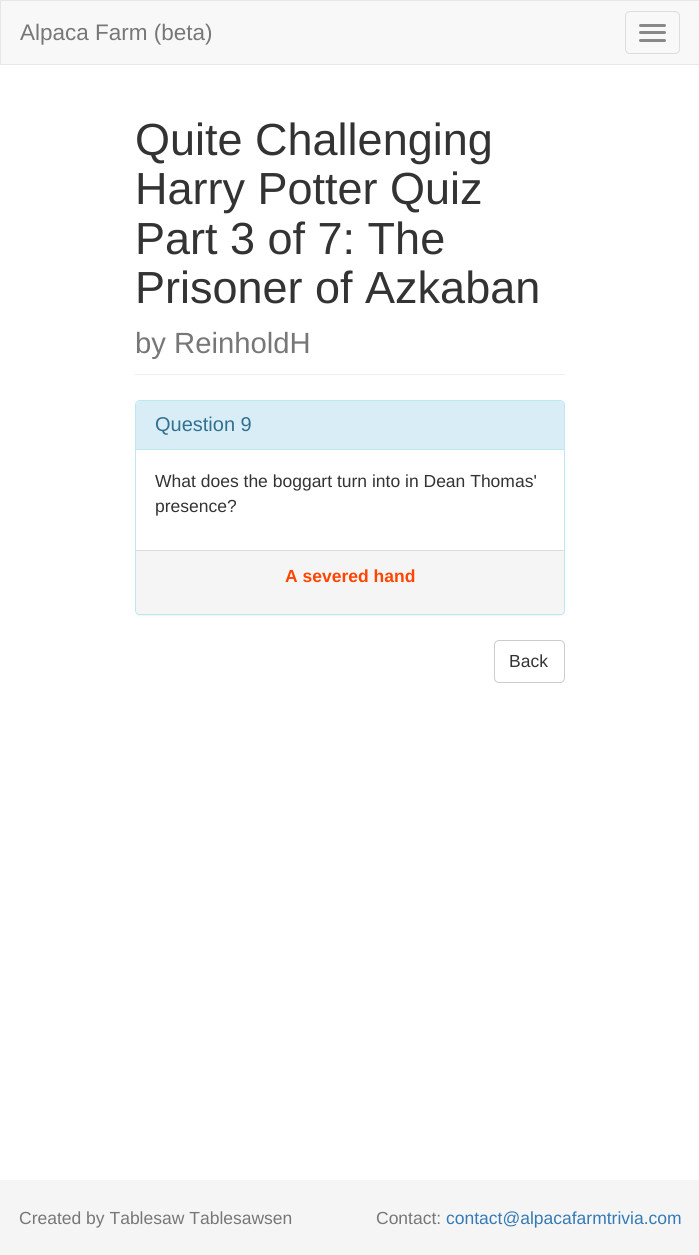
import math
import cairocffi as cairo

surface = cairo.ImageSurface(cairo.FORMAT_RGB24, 699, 1255)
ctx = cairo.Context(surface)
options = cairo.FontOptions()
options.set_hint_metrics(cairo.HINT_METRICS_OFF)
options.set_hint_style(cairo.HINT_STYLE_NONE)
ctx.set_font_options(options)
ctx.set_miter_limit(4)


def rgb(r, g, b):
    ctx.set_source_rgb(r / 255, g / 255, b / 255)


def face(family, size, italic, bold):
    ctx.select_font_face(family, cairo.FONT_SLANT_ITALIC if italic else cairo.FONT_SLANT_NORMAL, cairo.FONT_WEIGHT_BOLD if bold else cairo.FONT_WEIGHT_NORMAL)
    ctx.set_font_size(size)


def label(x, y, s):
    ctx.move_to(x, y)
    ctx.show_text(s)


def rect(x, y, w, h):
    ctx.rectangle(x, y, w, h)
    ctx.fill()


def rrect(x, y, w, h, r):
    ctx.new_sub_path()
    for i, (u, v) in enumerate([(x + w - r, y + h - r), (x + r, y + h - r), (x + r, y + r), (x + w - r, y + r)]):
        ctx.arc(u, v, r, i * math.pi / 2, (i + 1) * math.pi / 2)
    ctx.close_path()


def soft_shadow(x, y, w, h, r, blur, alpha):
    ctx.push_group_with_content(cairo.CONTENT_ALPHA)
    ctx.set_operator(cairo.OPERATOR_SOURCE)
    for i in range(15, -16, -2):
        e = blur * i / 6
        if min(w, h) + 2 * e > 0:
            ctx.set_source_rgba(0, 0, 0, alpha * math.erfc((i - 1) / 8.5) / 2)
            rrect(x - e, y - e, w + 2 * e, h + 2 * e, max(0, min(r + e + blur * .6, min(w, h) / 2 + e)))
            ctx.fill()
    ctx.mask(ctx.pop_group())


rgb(255, 255, 255)
ctx.paint()
rgb(248, 248, 248)
ctx.rectangle(0.5, 0.5, 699, 64)
ctx.fill_preserve()
rgb(231, 231, 231)
ctx.set_line_width(1)
ctx.stroke()
face('Liberation Sans', 22.5, 0, 0)
rgb(119, 119, 119)
label(20, 40, 'Alpaca Farm (beta)')
rrect(625.5, 11.5, 54, 42, 4.5)
rgb(221, 221, 221)
ctx.stroke()
rgb(136, 136, 136)
rrect(639, 24, 27, 3, 1.5)
ctx.fill()
rrect(639, 31, 27, 3, 1.5)
ctx.fill()
rrect(639, 39, 27, 3, 1.5)
ctx.fill()
rgb(238, 238, 238)
rect(135, 374, 430, 1)
face('Liberation Sans', 45, 0, 0)
rgb(51, 51, 51)
label(135, 155, 'Quite Challenging')
label(135, 204, 'Harry Potter Quiz')
label(135, 254, 'Part 3 of 7: The')
label(135, 303, 'Prisoner of Azkaban')
face('Liberation Sans', 29.25, 0, 0)
rgb(119, 119, 119)
label(135, 353, 'by ReinholdH')
rgb(0, 0, 0)
soft_shadow(135, 401, 430, 215, 5, 0.5, 0.05)
rgb(255, 255, 255)
rrect(135.5, 400.5, 429, 214, 4.5)
ctx.fill_preserve()
rgb(188, 232, 241)
ctx.stroke()
rgb(217, 237, 247)
ctx.new_path()
ctx.move_to(140, 401)
ctx.line_to(560, 401)
ctx.curve_to(562, 401, 564, 403, 564, 405)
ctx.line_to(564, 450)
ctx.line_to(136, 450)
ctx.line_to(136, 405)
ctx.curve_to(136, 403, 138, 401, 140, 401)
ctx.close_path()
ctx.fill()
rgb(188, 232, 241)
rect(136, 449, 428, 1)
face('Liberation Sans', 20, 0, 0)
rgb(49, 112, 143)
label(155, 431, 'Question 9')
face('Liberation Sans', 17.5, 0, 0)
rgb(51, 51, 51)
label(155, 487, 'What does the boggart turn into in Dean Thomas\'')
label(155, 512, 'presence?')
rgb(245, 245, 245)
ctx.new_path()
ctx.move_to(136, 550)
ctx.line_to(564, 550)
ctx.line_to(564, 610)
ctx.curve_to(564, 612, 562, 614, 560, 614)
ctx.line_to(140, 614)
ctx.curve_to(138, 614, 136, 612, 136, 610)
ctx.close_path()
ctx.fill()
rgb(221, 221, 221)
rect(136, 550, 428, 1)
face('Liberation Sans', 17.5, 0, 1)
rgb(255, 69, 0)
label(285, 582, 'A severed hand')
rrect(494.5, 640.5, 70, 42, 4.5)
rgb(204, 204, 204)
ctx.stroke()
face('Liberation Sans', 17.5, 0, 0)
rgb(51, 51, 51)
label(509, 667, 'Back')
rgb(245, 245, 245)
rect(0, 1180, 699, 75)
rgb(119, 119, 119)
label(19, 1224, 'Created by Tablesaw Tablesawsen')
label(376, 1224, 'Contact:')
rgb(51, 122, 183)
label(446, 1224, 'contact@alpacafarmtrivia.com')
surface.write_to_png('render.png')
